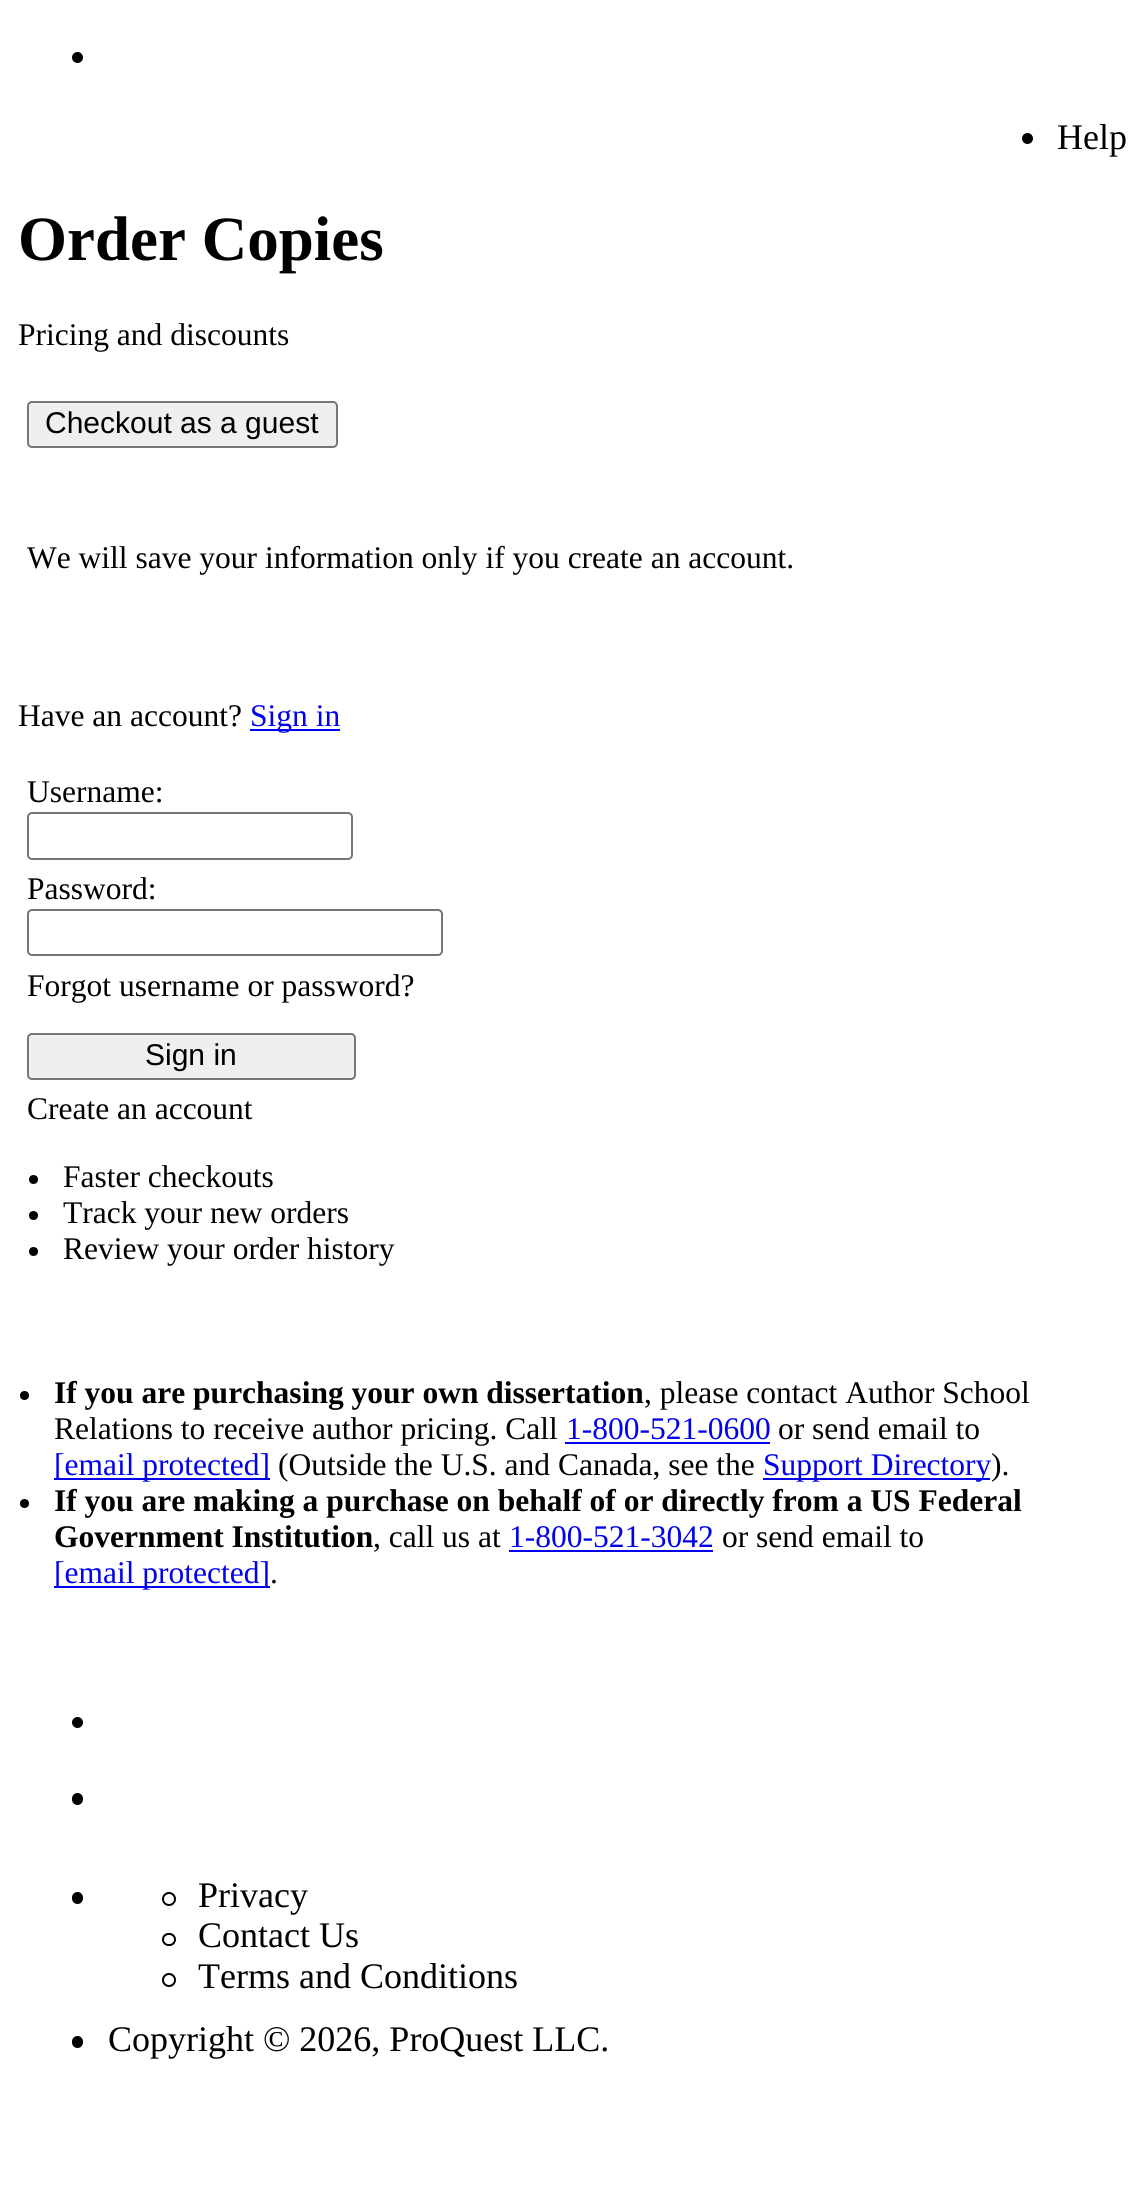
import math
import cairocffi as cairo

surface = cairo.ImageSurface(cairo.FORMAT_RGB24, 1148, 2212)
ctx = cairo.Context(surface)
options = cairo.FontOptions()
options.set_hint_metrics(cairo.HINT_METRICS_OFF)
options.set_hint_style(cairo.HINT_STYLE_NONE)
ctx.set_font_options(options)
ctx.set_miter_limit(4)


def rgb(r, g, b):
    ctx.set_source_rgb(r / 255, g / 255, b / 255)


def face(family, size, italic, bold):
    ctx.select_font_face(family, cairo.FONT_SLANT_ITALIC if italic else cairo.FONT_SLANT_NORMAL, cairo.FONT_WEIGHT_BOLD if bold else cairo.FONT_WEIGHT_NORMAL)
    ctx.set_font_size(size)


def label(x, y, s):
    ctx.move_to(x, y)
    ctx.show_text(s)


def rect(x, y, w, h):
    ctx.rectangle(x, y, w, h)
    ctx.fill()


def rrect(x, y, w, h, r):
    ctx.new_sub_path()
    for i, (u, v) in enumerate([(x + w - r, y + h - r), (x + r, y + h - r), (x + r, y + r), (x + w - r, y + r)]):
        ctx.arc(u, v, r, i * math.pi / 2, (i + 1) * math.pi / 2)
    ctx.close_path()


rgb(255, 255, 255)
ctx.paint()
rgb(0, 0, 0)
ctx.arc(77.5, 57.5, 5.5, 0, 2 * math.pi)
ctx.fill()
ctx.arc(1027.5, 138.5, 5.5, 0, 2 * math.pi)
ctx.fill()
face('Liberation Serif', 36, 0, 0)
label(1057, 149, 'Help')
face('Liberation Serif', 63, 0, 1)
label(18, 260, 'Order Copies')
face('Liberation Serif', 31.5, 0, 0)
label(18, 345, 'Pricing and discounts')
rgb(239, 239, 239)
rrect(28, 402, 309, 45, 4)
ctx.fill_preserve()
rgb(118, 118, 118)
ctx.stroke()
face('Liberation Sans', 30, 0, 0)
rgb(0, 0, 0)
label(45, 433, 'Checkout as a guest')
face('Liberation Serif', 31.5, 0, 0)
label(27, 568, 'We will save your information only if you create an account.')
label(18, 726, 'Have an account?')
rgb(0, 0, 238)
rect(250, 729, 90, 2)
label(250, 726, 'Sign in')
rgb(0, 0, 0)
label(27, 802, 'Username:')
rrect(28, 813, 324, 46, 4)
rgb(118, 118, 118)
ctx.stroke()
rgb(0, 0, 0)
label(27, 899, 'Password:')
rrect(28, 910, 414, 45, 4)
rgb(118, 118, 118)
ctx.stroke()
rgb(0, 0, 0)
label(27, 996, 'Forgot username or password?')
rgb(239, 239, 239)
rrect(28, 1034, 327, 45, 4)
ctx.fill_preserve()
rgb(118, 118, 118)
ctx.stroke()
face('Liberation Sans', 30, 0, 0)
rgb(0, 0, 0)
label(145, 1065, 'Sign in')
face('Liberation Serif', 31.5, 0, 0)
label(27, 1119, 'Create an account')
ctx.new_path()
ctx.arc(33.5, 1179.5, 4.5, 0, 2 * math.pi)
ctx.fill()
label(63, 1187, 'Faster checkouts')
ctx.new_path()
ctx.arc(33.5, 1215.5, 4.5, 0, 2 * math.pi)
ctx.fill()
label(63, 1223, 'Track your new orders')
ctx.new_path()
ctx.arc(33.5, 1251.5, 4.5, 0, 2 * math.pi)
ctx.fill()
label(63, 1259, 'Review your order history')
ctx.new_path()
ctx.arc(24.5, 1395.5, 4.5, 0, 2 * math.pi)
ctx.fill()
face('Liberation Serif', 31.5, 0, 1)
label(54, 1403, 'If you are purchasing your own dissertation')
face('Liberation Serif', 31.5, 0, 0)
label(644, 1403, ', please contact Author School')
label(54, 1439, 'Relations to receive author pricing. Call')
rgb(0, 0, 238)
label(566, 1439, '1-800-521-0600')
rect(565, 1442, 205, 2)
rgb(0, 0, 0)
label(778, 1439, 'or send email to')
rgb(0, 0, 238)
rect(54, 1478, 216, 2)
label(54, 1475, '[email protected]')
rgb(0, 0, 0)
label(278, 1475, '(Outside the U.S. and Canada, see the')
rgb(0, 0, 238)
rect(763, 1478, 227, 2)
label(763, 1475, 'Support Directory')
rgb(0, 0, 0)
label(991, 1475, ').')
ctx.new_path()
ctx.arc(24.5, 1503.5, 4.5, 0, 2 * math.pi)
ctx.fill()
face('Liberation Serif', 31.5, 0, 1)
label(54, 1511, 'If you are making a purchase on behalf of or directly from a US Federal')
label(54, 1547, 'Government Institution')
face('Liberation Serif', 31.5, 0, 0)
label(373, 1547, ', call us at')
rgb(0, 0, 238)
label(509, 1547, '1-800-521-3042')
rect(509, 1550, 204, 2)
rgb(0, 0, 0)
label(722, 1547, 'or send email to')
rgb(0, 0, 238)
rect(54, 1586, 216, 2)
label(54, 1583, '[email protected]')
rgb(0, 0, 0)
label(270, 1583, '.')
ctx.new_path()
ctx.arc(77.5, 1722.5, 5.5, 0, 2 * math.pi)
ctx.fill()
rrect(72, 1793, 11, 12, 5.5)
ctx.fill()
rrect(72, 1892, 11, 12, 5.5)
ctx.fill()
ctx.arc(169, 1899, 6, 0, 2 * math.pi)
ctx.stroke()
face('Liberation Serif', 36, 0, 0)
label(198, 1907, 'Privacy')
rrect(163, 1934, 12, 11, 5.5)
ctx.stroke()
label(198, 1947, 'Contact Us')
ctx.new_path()
ctx.arc(169, 1980, 6, 0, 2 * math.pi)
ctx.stroke()
label(198, 1988, 'Terms and Conditions')
rrect(72, 2036, 11, 12, 5.5)
ctx.fill()
label(108, 2051, 'Copyright © 2026, ProQuest LLC.')
surface.write_to_png('render.png')
